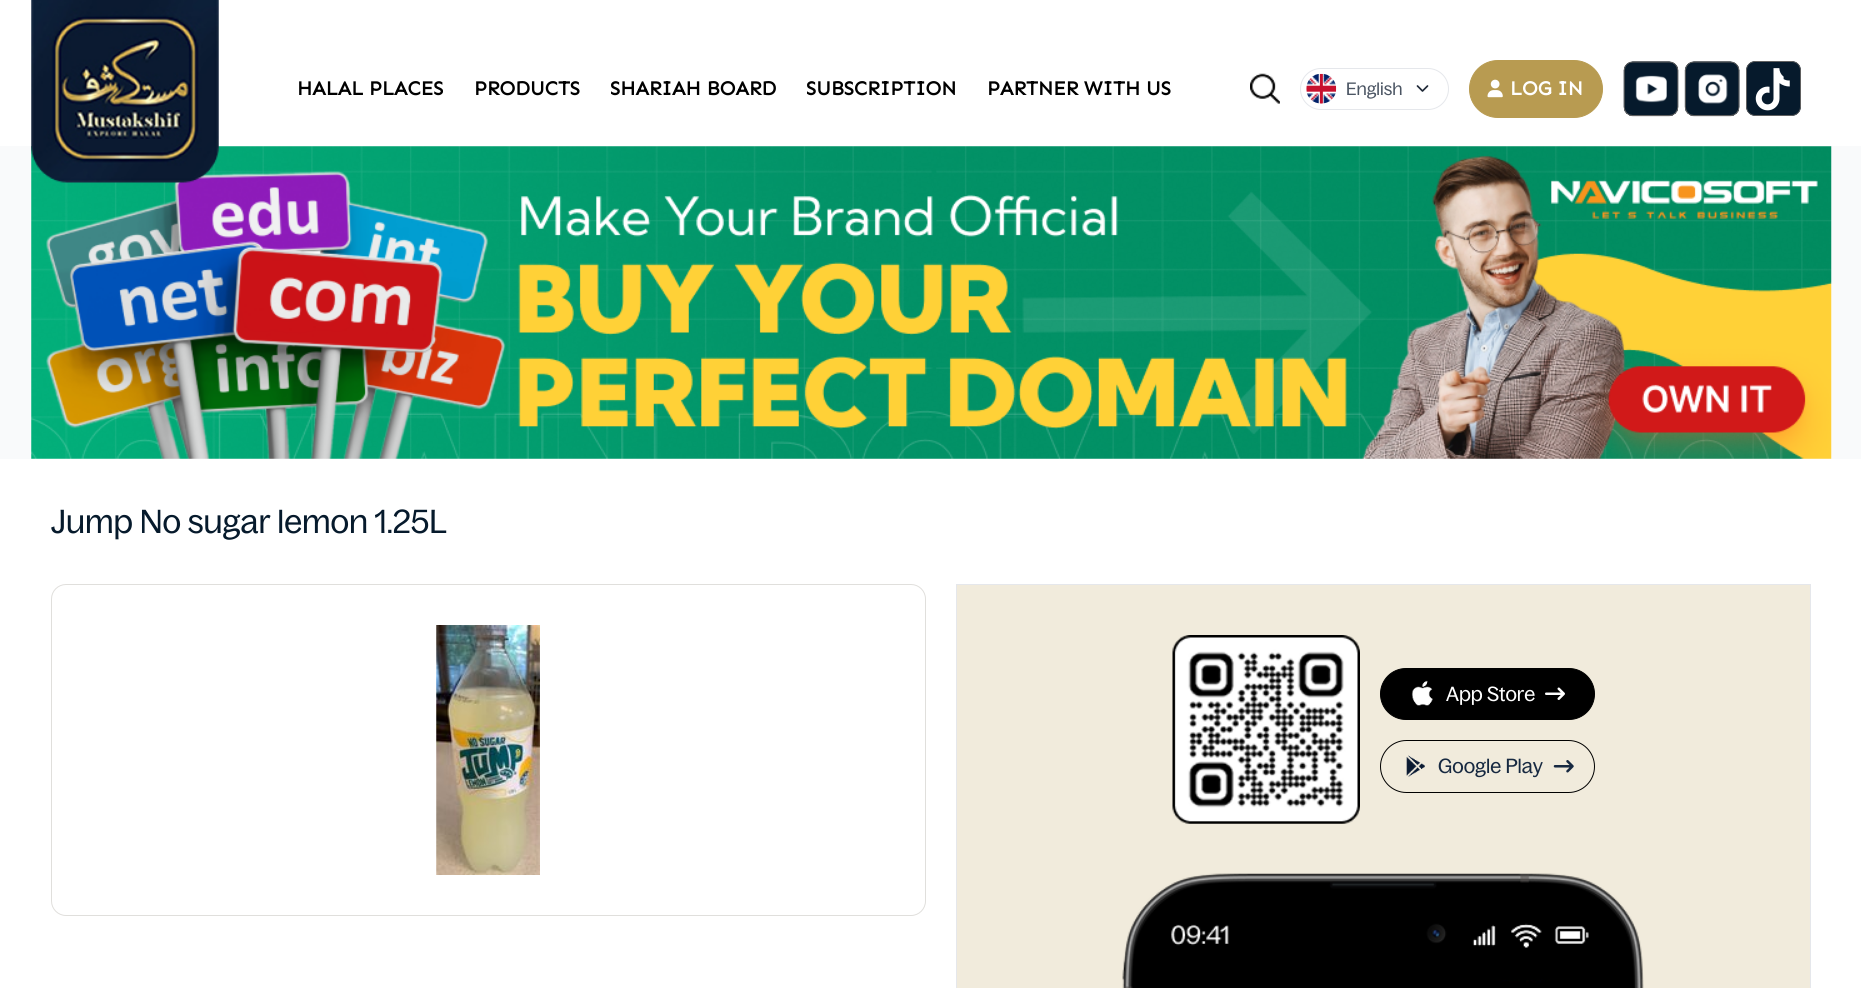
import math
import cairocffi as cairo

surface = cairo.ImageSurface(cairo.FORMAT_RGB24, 1861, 988)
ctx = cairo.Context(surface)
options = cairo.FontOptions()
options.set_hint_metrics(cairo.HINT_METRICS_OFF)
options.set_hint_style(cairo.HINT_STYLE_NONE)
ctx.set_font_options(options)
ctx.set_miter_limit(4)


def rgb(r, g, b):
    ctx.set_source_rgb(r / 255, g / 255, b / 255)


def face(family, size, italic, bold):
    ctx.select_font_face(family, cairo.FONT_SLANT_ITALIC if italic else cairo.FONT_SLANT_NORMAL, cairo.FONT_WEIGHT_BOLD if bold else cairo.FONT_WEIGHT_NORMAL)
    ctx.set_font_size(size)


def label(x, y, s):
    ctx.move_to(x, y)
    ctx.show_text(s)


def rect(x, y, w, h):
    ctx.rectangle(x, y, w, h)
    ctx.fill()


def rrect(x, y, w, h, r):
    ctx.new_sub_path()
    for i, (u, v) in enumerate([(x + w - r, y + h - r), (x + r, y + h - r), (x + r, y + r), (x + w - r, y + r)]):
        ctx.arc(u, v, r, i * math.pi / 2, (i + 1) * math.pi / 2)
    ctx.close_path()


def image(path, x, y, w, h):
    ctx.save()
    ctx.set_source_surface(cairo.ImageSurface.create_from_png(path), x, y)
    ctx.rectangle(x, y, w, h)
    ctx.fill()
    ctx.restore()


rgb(255, 255, 255)
ctx.paint()
rgb(249, 250, 251)
rect(0, 146, 1861, 313)
image('image7.png', 31, 146, 1801, 313)
image('image0.png', 31, 0, 188, 183)
face('Sen', 20, 0, 1)
rgb(0, 0, 0)
label(297, 95, 'HALAL PLACES')
label(474, 95, 'PRODUCTS')
label(610, 95, 'SHARIAH BOARD')
label(806, 95, 'SUBSCRIPTION')
label(987, 95, 'PARTNER WITH US')
image('image1.png', 1250, 73, 30, 31)
rrect(1300.5, 68.5, 148, 41, 20.5)
rgb(229, 231, 235)
ctx.set_line_width(1)
ctx.stroke()
image('image2.png', 1306, 73, 31, 31)
face('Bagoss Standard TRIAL', 17.5, 0, 0)
rgb(75, 85, 99)
label(1346, 95, 'English')
ctx.new_path()
ctx.move_to(1417.5, 86)
ctx.line_to(1422.5, 91)
ctx.line_to(1427.5, 86)
rgb(31, 41, 55)
ctx.set_line_width(1.7)
ctx.set_line_cap(cairo.LINE_CAP_ROUND)
ctx.set_line_join(cairo.LINE_JOIN_ROUND)
ctx.stroke()
rgb(184, 155, 81)
rrect(1469.5, 60.5, 133, 57, 28.5)
ctx.fill_preserve()
ctx.set_line_width(1)
ctx.set_line_cap(cairo.LINE_CAP_BUTT)
ctx.set_line_join(cairo.LINE_JOIN_MITER)
ctx.stroke()
image('image3.png', 1487, 79, 16, 19)
face('Sen', 20, 0, 1)
rgb(255, 255, 255)
label(1510, 95, 'LOG IN')
image('image4.png', 1623, 61, 56, 56)
image('image5.png', 1684, 61, 56, 56)
image('image6.png', 1746, 61, 55, 55)
face('Bagoss Standard TRIAL', 32.5, 0, 0)
rgb(6, 26, 44)
label(51, 533, 'Jump No sugar lemon 1.25L')
rrect(51.5, 584.5, 874, 331, 14.5)
rgb(224, 223, 220)
ctx.stroke()
image('image8.png', 436, 625, 104, 250)
rgb(241, 235, 220)
ctx.rectangle(956.5, 584.5, 854, 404)
ctx.fill_preserve()
rgb(229, 231, 235)
ctx.stroke()
image('image9.png', 1172, 635, 188, 189)
rgb(0, 0, 0)
rrect(1380.5, 668.5, 214, 51, 25.5)
ctx.fill_preserve()
ctx.stroke()
image('image10.png', 1411, 680, 22, 26)
face('Bagoss Standard TRIAL', 20, 0, 0)
rgb(255, 255, 255)
label(1446, 701, 'App Store')
image('image11.png', 1545, 687, 20, 13)
rrect(1380.5, 740.5, 214, 52, 26)
rgb(0, 0, 0)
ctx.stroke()
image('image12.png', 1406, 755, 19, 22)
rgb(23, 41, 65)
label(1438, 773, 'Google Play')
image('image13.png', 1553, 760, 21, 13)
image('image14.png', 1122, 873, 522, 115)
surface.write_to_png('render.png')
